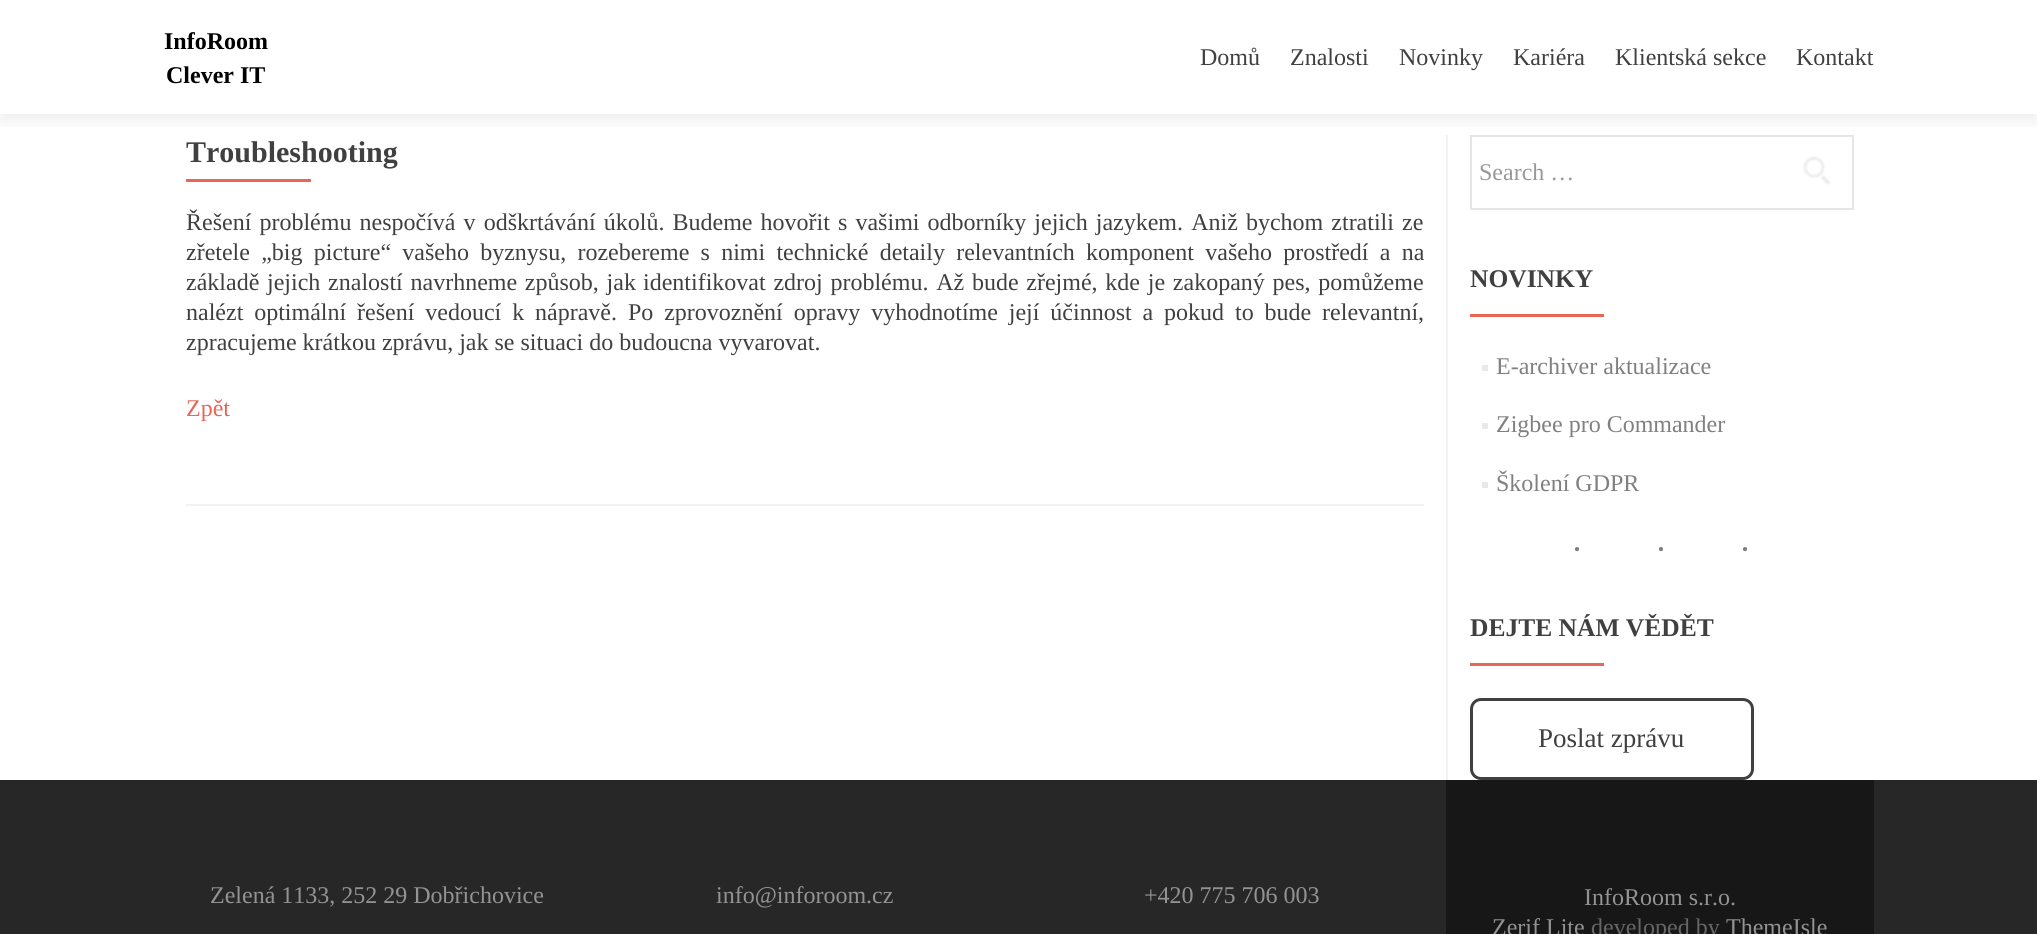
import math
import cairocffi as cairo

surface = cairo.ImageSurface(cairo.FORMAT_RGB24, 2037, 934)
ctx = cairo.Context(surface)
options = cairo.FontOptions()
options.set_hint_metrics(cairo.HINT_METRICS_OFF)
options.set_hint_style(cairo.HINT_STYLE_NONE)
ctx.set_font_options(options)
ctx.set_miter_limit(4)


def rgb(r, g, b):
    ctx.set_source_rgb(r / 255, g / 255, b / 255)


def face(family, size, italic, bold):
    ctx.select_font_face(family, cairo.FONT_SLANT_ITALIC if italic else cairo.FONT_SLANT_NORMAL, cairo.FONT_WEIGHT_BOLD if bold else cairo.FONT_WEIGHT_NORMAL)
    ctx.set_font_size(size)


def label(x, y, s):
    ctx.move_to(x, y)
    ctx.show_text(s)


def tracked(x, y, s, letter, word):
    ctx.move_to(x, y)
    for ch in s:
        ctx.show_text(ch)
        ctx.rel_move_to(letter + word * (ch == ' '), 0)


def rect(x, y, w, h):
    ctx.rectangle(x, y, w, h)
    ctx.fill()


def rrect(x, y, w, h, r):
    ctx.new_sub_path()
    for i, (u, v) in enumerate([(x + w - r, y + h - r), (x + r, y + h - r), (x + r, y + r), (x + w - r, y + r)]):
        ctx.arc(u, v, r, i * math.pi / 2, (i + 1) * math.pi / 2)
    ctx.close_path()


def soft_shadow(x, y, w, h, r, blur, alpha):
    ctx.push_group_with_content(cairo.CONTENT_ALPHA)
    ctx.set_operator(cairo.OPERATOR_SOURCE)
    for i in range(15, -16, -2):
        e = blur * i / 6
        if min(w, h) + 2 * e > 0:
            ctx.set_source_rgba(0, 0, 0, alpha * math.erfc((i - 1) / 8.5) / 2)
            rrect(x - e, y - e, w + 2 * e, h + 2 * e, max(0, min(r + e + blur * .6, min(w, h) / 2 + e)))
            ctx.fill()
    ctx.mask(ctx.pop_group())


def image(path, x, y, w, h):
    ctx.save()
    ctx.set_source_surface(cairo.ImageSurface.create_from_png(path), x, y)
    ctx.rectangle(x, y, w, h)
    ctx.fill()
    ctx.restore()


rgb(255, 255, 255)
ctx.paint()
rgb(242, 242, 242)
rect(1446, 135, 2, 645)
ctx.rectangle(1471, 136, 382, 73)
rgb(230, 230, 230)
ctx.stroke()
ctx.save()
ctx.rectangle(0, 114, 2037, 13)
ctx.clip()
rgb(50, 50, 50)
soft_shadow(0, 8, 2037, 114, 0, 8, 0.08)
ctx.restore()
face('Liberation Serif', 24, 0, 1)
rgb(0, 0, 0)
label(164, 49, 'InfoRoom')
label(166, 83, 'Clever IT')
face('Liberation Serif', 24, 0, 0)
rgb(64, 64, 64)
label(1200, 65, 'Domů')
label(1290, 65, 'Znalosti')
label(1399, 65, 'Novinky')
label(1513, 65, 'Kariéra')
label(1615, 65, 'Klientská sekce')
label(1796, 65, 'Kontakt')
rgb(242, 242, 242)
rect(186, 504, 1238, 2)
face('Liberation Serif', 30, 0, 1)
rgb(64, 64, 64)
label(186, 162, 'Troubleshooting')
rgb(233, 102, 86)
rect(186, 179, 125, 3)
face('Liberation Serif', 24, 0, 0)
rgb(64, 64, 64)
tracked(186, 230, 'Řešení problému nespočívá v odškrtávání úkolů. Budeme hovořit s vašimi odborníky jejich jazykem. Aniž bychom ztratili ze', 0, 2.1)
tracked(186, 260, 'zřetele „big picture“ vašeho byznysu, rozebereme s nimi technické detaily relevantních komponent vašeho prostředí a na', 0, 5.25)
tracked(186, 290, 'základě jejich znalostí navrhneme způsob, jak', 0, 1.75)
tracked(643, 290, 'identifikovat zdroj problému. Až bude zřejmé, kde je zakopaný pes, pomůžeme', 0, 1.75)
tracked(186, 320, 'nalézt optimální řešení vedoucí k nápravě. Po zprovoznění opravy vyhodnotíme její účinnost a pokud to bude relevantní,', 0, 4.9)
label(186, 350, 'zpracujeme krátkou zprávu, jak se situaci do budoucna vyvarovat.')
rgb(233, 102, 86)
label(186, 416, 'Zpět')
rgb(153, 153, 153)
label(1479, 180, 'Search …')
image('image0.png', 1803, 156, 27, 29)
face('Liberation Serif', 25.5, 0, 1)
rgb(64, 64, 64)
label(1470, 287, 'NOVINKY')
rgb(233, 102, 86)
rect(1470, 314, 134, 3)
rgb(233, 233, 233)
rect(1482, 365, 6, 6)
face('Liberation Serif', 24, 0, 0)
rgb(128, 128, 128)
label(1496, 374, 'E-archiver aktualizace')
rgb(233, 233, 233)
rect(1482, 423, 6, 6)
rgb(128, 128, 128)
label(1496, 432, 'Zigbee pro Commander')
rgb(233, 233, 233)
rect(1482, 482, 6, 6)
rgb(128, 128, 128)
label(1496, 491, 'Školení GDPR')
face('Liberation Serif', 36, 0, 0)
tracked(1571, 561, '···', 72, 0)
face('Liberation Serif', 25.5, 0, 1)
rgb(64, 64, 64)
label(1470, 636, 'DEJTE NÁM VĚDĚT')
rgb(233, 102, 86)
rect(1470, 663, 134, 3)
rrect(1471.5, 699.5, 281, 79, 9.5)
rgb(64, 64, 64)
ctx.set_line_width(3)
ctx.stroke()
face('Liberation Serif', 27, 0, 0)
label(1538, 747, 'Poslat zprávu')
rgb(39, 39, 39)
rect(0, 780, 2037, 154)
face('Liberation Serif', 24, 0, 0)
rgb(147, 147, 147)
label(210, 903, 'Zelená 1133, 252 29 Dobřichovice')
label(716, 903, 'info@inforoom.cz')
label(1144, 903, '+420 775 706 003')
rgb(23, 23, 23)
rect(1446, 780, 428, 154)
rgb(147, 147, 147)
label(1584, 905, 'InfoRoom s.r.o.')
label(1492, 935, 'Zerif Lite')
rgb(102, 102, 102)
label(1591, 935, 'developed by')
rgb(147, 147, 147)
label(1726, 935, 'ThemeIsle')
surface.write_to_png('render.png')
